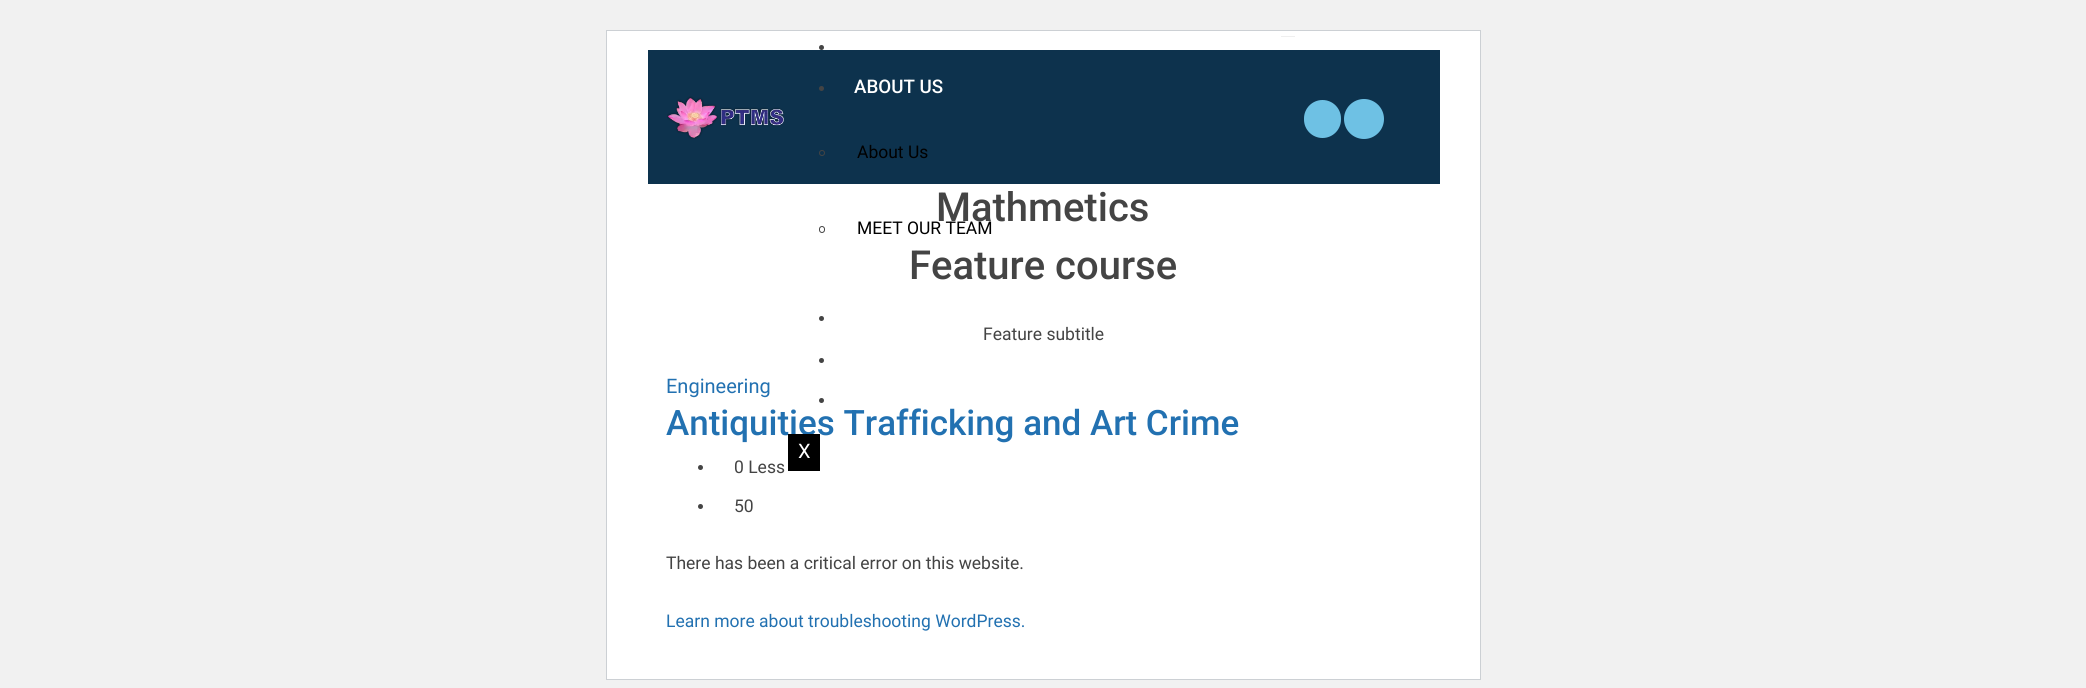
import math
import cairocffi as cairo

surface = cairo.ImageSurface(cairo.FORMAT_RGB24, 2086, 688)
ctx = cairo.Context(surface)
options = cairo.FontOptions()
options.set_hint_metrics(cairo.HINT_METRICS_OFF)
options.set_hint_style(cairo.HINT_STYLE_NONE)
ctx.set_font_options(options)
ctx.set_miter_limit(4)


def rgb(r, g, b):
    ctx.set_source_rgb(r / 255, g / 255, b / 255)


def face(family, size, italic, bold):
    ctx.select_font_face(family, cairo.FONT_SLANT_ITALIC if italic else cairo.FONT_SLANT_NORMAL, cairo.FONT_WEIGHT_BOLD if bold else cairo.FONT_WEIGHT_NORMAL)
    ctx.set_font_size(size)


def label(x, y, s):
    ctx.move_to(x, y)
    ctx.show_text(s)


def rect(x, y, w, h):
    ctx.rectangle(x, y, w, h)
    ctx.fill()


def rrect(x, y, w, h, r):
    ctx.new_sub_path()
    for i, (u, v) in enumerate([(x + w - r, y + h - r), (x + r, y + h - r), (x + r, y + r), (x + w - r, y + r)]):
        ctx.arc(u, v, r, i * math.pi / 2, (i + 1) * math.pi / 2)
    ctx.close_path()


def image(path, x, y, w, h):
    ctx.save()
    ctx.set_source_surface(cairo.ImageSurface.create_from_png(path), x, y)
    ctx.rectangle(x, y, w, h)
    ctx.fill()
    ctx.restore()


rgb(241, 241, 241)
ctx.paint()
rgb(255, 255, 255)
ctx.rectangle(606.5, 30.5, 874, 649)
ctx.fill_preserve()
rgb(204, 208, 212)
ctx.set_line_width(1)
ctx.stroke()
rgb(13, 50, 77)
rect(648, 50, 792, 134)
image('image0.png', 667, 96, 117, 43)
rgb(239, 239, 239)
ctx.rectangle(1279.5, 34.5, 17, 4)
ctx.fill_preserve()
rgb(255, 255, 255)
ctx.set_line_width(3)
ctx.stroke()
rgb(68, 68, 68)
ctx.arc(821.5, 47.5, 2.5, 0, 2 * math.pi)
ctx.fill()
ctx.arc(821.5, 88.5, 2.5, 0, 2 * math.pi)
ctx.fill()
face('Roboto Medium', 18.75, 0, 0)
rgb(255, 255, 255)
label(854, 93, 'ABOUT US')
ctx.new_path()
ctx.arc(822, 153, 2.5, 0, 2 * math.pi)
rgb(68, 68, 68)
ctx.set_line_width(1)
ctx.stroke()
face('Roboto', 17.5, 0, 0)
rgb(0, 0, 0)
label(857, 158, 'About Us')
rrect(819.5, 226.5, 5, 6, 2.5)
rgb(68, 68, 68)
ctx.stroke()
rgb(0, 0, 0)
label(857, 234, 'MEET OUR TEAM')
rgb(68, 68, 68)
ctx.new_path()
ctx.arc(821.5, 318.5, 2.5, 0, 2 * math.pi)
ctx.fill()
ctx.arc(821.5, 360.5, 2.5, 0, 2 * math.pi)
ctx.fill()
ctx.arc(821.5, 400.5, 2.5, 0, 2 * math.pi)
ctx.fill()
face('Roboto Medium', 35, 0, 0)
rgb(34, 113, 177)
label(666, 435, 'Antiquities Trafficking and Art Crime')
rgb(0, 0, 0)
rect(788, 434, 32, 37)
face('Roboto', 20, 0, 0)
rgb(255, 255, 255)
label(798, 458, 'X')
rgb(110, 193, 228)
rrect(1304, 100, 37, 38, 18.5)
ctx.fill()
ctx.arc(1364, 119, 20, 0, 2 * math.pi)
ctx.fill()
face('Roboto Medium', 40, 0, 0)
rgb(68, 68, 68)
label(936, 221, 'Mathmetics')
label(909, 279, 'Feature course')
face('Roboto', 17.5, 0, 0)
label(983, 340, 'Feature subtitle')
face('Roboto', 20, 0, 0)
rgb(34, 113, 177)
label(666, 393, 'Engineering')
rgb(68, 68, 68)
ctx.new_path()
ctx.arc(700.5, 467.5, 2.5, 0, 2 * math.pi)
ctx.fill()
face('Roboto', 17.5, 0, 0)
label(734, 473, '0 Less')
ctx.new_path()
ctx.arc(700.5, 506.5, 2.5, 0, 2 * math.pi)
ctx.fill()
label(734, 512, '50')
label(666, 569, 'There has been a critical error on this website.')
rgb(34, 113, 177)
label(666, 627, 'Learn more about troubleshooting WordPress.')
surface.write_to_png('render.png')
